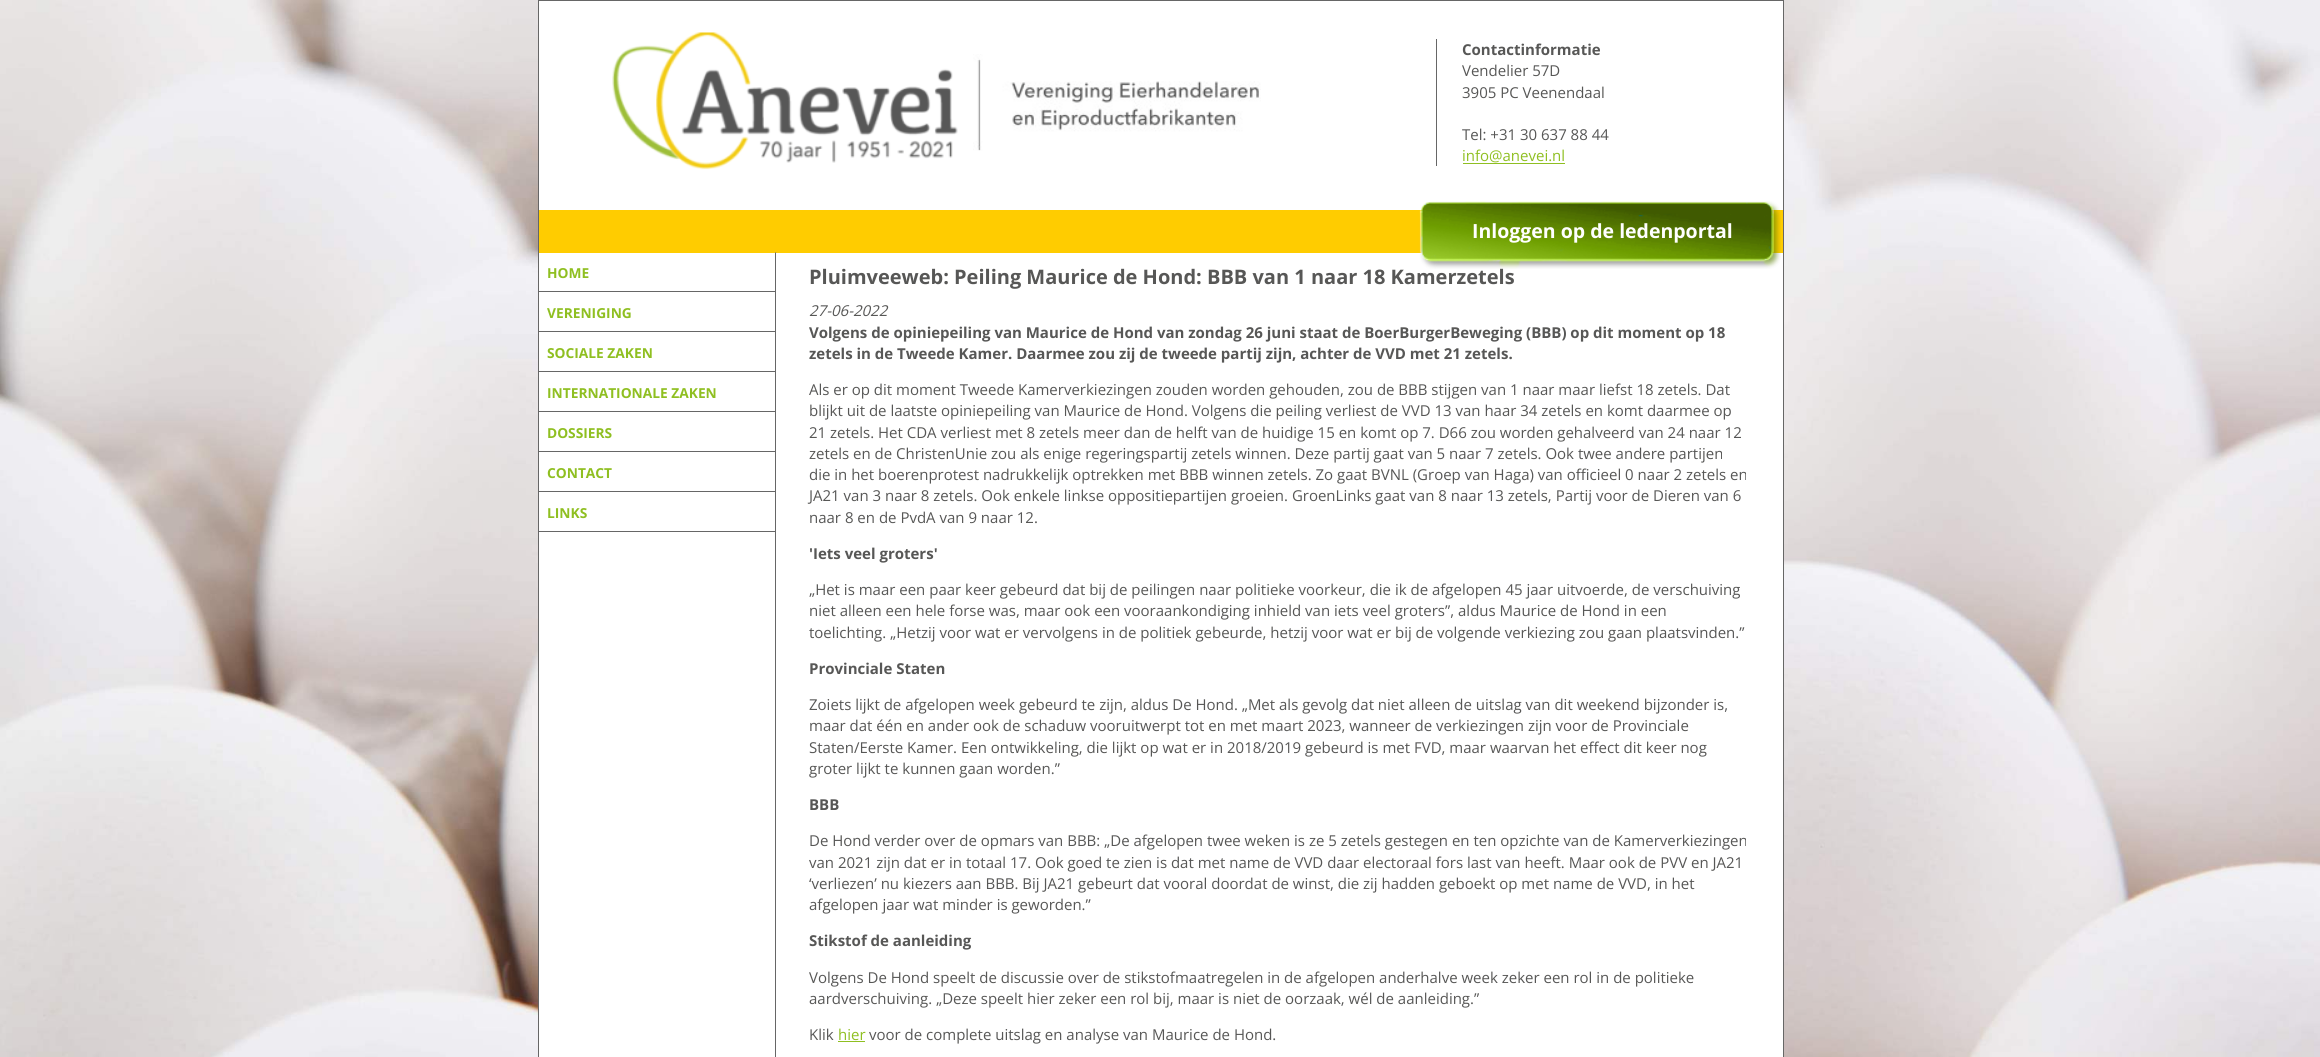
import math
import cairocffi as cairo

surface = cairo.ImageSurface(cairo.FORMAT_RGB24, 2320, 1057)
ctx = cairo.Context(surface)
options = cairo.FontOptions()
options.set_hint_metrics(cairo.HINT_METRICS_OFF)
options.set_hint_style(cairo.HINT_STYLE_NONE)
ctx.set_font_options(options)
ctx.set_miter_limit(4)


def rgb(r, g, b):
    ctx.set_source_rgb(r / 255, g / 255, b / 255)


def face(family, size, italic, bold):
    ctx.select_font_face(family, cairo.FONT_SLANT_ITALIC if italic else cairo.FONT_SLANT_NORMAL, cairo.FONT_WEIGHT_BOLD if bold else cairo.FONT_WEIGHT_NORMAL)
    ctx.set_font_size(size)


def label(x, y, s):
    ctx.move_to(x, y)
    ctx.show_text(s)


def rect(x, y, w, h):
    ctx.rectangle(x, y, w, h)
    ctx.fill()


def image(path, x, y, w, h):
    ctx.save()
    ctx.set_source_surface(cairo.ImageSurface.create_from_png(path), x, y)
    ctx.rectangle(x, y, w, h)
    ctx.fill()
    ctx.restore()


rgb(255, 255, 255)
ctx.paint()
image('image0.png', 0, 0, 2320, 1057)
ctx.rectangle(538.5, 0.5, 1245, 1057)
rgb(102, 102, 102)
ctx.set_line_width(1)
ctx.stroke()
rgb(255, 255, 255)
rect(539, 1, 1244, 209)
image('image1.png', 612, 32, 346, 138)
image('image2.png', 973, 54, 288, 97)
rgb(102, 102, 102)
rect(1436, 39, 1, 127)
face('Open Sans', 15, 0, 1)
rgb(87, 87, 86)
label(1462, 55, 'Contactinformatie')
face('Open Sans', 15, 0, 0)
label(1462, 76, 'Vendelier 57D')
label(1462, 98, '3905 PC Veenendaal')
label(1462, 140, 'Tel: +31 30 637 88 44')
rgb(143, 191, 33)
label(1462, 161, 'info@anevei.nl')
rect(1463, 163, 102, 1)
rgb(255, 204, 0)
rect(539, 210, 1244, 43)
image('image4.png', 775, 252, 2, 805)
rgb(255, 255, 255)
rect(776, 253, 1007, 804)
face('Open Sans', 20, 0, 1)
rgb(87, 87, 86)
label(809, 284, 'Pluimveeweb: Peiling Maurice de Hond: BBB van 1 naar 18 Kamerzetels')
image('image3.png', 1419, 201, 362, 68)
face('Open Sans', 19.5, 0, 1)
rgb(255, 255, 255)
label(1472, 238, 'Inloggen op de ledenportal')
rect(539, 253, 236, 804)
rgb(102, 102, 102)
rect(539, 291, 237, 1)
face('Open Sans', 13.75, 0, 1)
rgb(143, 191, 33)
label(547, 278, 'HOME')
rgb(102, 102, 102)
rect(539, 331, 237, 1)
rgb(143, 191, 33)
label(547, 318, 'VERENIGING')
rgb(102, 102, 102)
rect(539, 371, 237, 1)
rgb(143, 191, 33)
label(547, 358, 'SOCIALE ZAKEN')
rgb(102, 102, 102)
rect(539, 411, 237, 1)
rgb(143, 191, 33)
label(547, 398, 'INTERNATIONALE ZAKEN')
rgb(102, 102, 102)
rect(539, 451, 237, 1)
rgb(143, 191, 33)
label(547, 438, 'DOSSIERS')
rgb(102, 102, 102)
rect(539, 491, 237, 1)
rgb(143, 191, 33)
label(547, 478, 'CONTACT')
rgb(102, 102, 102)
rect(539, 531, 237, 1)
rgb(143, 191, 33)
label(547, 518, 'LINKS')
face('Open Sans', 15, 1, 0)
rgb(87, 87, 86)
label(809, 316, '27-06-2022')
face('Open Sans', 15, 0, 1)
label(809, 338, 'Volgens de opiniepeiling van Maurice de Hond van zondag 26 juni staat de BoerBurgerBeweging (BBB) op dit moment op 18')
label(809, 359, 'zetels in de Tweede Kamer. Daarmee zou zij de tweede partij zijn, achter de VVD met 21 zetels.')
face('Open Sans', 15, 0, 0)
label(809, 395, 'Als er op dit moment Tweede Kamerverkiezingen zouden worden gehouden, zou de BBB stijgen van 1 naar maar liefst 18 zetels. Dat')
label(809, 416, 'blijkt uit de laatste opiniepeiling van Maurice de Hond. Volgens die peiling verliest de VVD 13 van haar 34 zetels en komt daarmee op')
label(809, 438, '21 zetels. Het CDA verliest met 8 zetels meer dan de helft van de huidige 15 en komt op 7. D66 zou worden gehalveerd van 24 naar 12')
label(809, 459, 'zetels en de ChristenUnie zou als enige regeringspartij zetels winnen. Deze partij gaat van 5 naar 7 zetels. Ook twee andere partijen')
label(809, 480, 'die in het boerenprotest nadrukkelijk optrekken met BBB winnen zetels. Zo gaat BVNL (Groep van Haga) van officieel 0 naar 2 zetels en')
label(809, 501, 'JA21 van 3 naar 8 zetels. Ook enkele linkse oppositiepartijen groeien. GroenLinks gaat van 8 naar 13 zetels, Partij voor de Dieren van 6')
label(809, 523, 'naar 8 en de PvdA van 9 naar 12.')
face('Open Sans', 15, 0, 1)
label(809, 559, '\'Iets veel groters\'')
face('Open Sans', 15, 0, 0)
label(809, 595, '„Het is maar een paar keer gebeurd dat bij de peilingen naar politieke voorkeur, die ik de afgelopen 45 jaar uitvoerde, de verschuiving')
label(809, 616, 'niet alleen een hele forse was, maar ook een vooraankondiging inhield van iets veel groters”, aldus Maurice de Hond in een')
label(809, 638, 'toelichting. „Hetzij voor wat er vervolgens in de politiek gebeurde, hetzij voor wat er bij de volgende verkiezing zou gaan plaatsvinden.”')
face('Open Sans', 15, 0, 1)
label(809, 674, 'Provinciale Staten')
face('Open Sans', 15, 0, 0)
label(809, 710, 'Zoiets lijkt de afgelopen week gebeurd te zijn, aldus De Hond. „Met als gevolg dat niet alleen de uitslag van dit weekend bijzonder is,')
label(809, 731, 'maar dat één en ander ook de schaduw vooruitwerpt tot en met maart 2023, wanneer de verkiezingen zijn voor de Provinciale')
label(809, 753, 'Staten/Eerste Kamer. Een ontwikkeling, die lijkt op wat er in 2018/2019 gebeurd is met FVD, maar waarvan het effect dit keer nog')
label(809, 774, 'groter lijkt te kunnen gaan worden.”')
face('Open Sans', 15, 0, 1)
label(809, 810, 'BBB')
face('Open Sans', 15, 0, 0)
label(809, 846, 'De Hond verder over de opmars van BBB: „De afgelopen twee weken is ze 5 zetels gestegen en ten opzichte van de Kamerverkiezingen')
label(809, 868, 'van 2021 zijn dat er in totaal 17. Ook goed te zien is dat met name de VVD daar electoraal fors last van heeft. Maar ook de PVV en JA21')
label(809, 889, '‘verliezen’ nu kiezers aan BBB. Bij JA21 gebeurt dat vooral doordat de winst, die zij hadden geboekt op met name de VVD, in het')
label(809, 910, 'afgelopen jaar wat minder is geworden.”')
face('Open Sans', 15, 0, 1)
label(809, 946, 'Stikstof de aanleiding')
face('Open Sans', 15, 0, 0)
label(809, 983, 'Volgens De Hond speelt de discussie over de stikstofmaatregelen in de afgelopen anderhalve week zeker een rol in de politieke')
label(809, 1004, 'aardverschuiving. „Deze speelt hier zeker een rol bij, maar is niet de oorzaak, wél de aanleiding.”')
label(809, 1040, 'Klik')
rgb(143, 191, 33)
label(838, 1040, 'hier')
rect(838, 1041, 27, 1)
rgb(87, 87, 86)
label(869, 1040, 'voor de complete uitslag en analyse van Maurice de Hond.')
surface.write_to_png('render.png')
